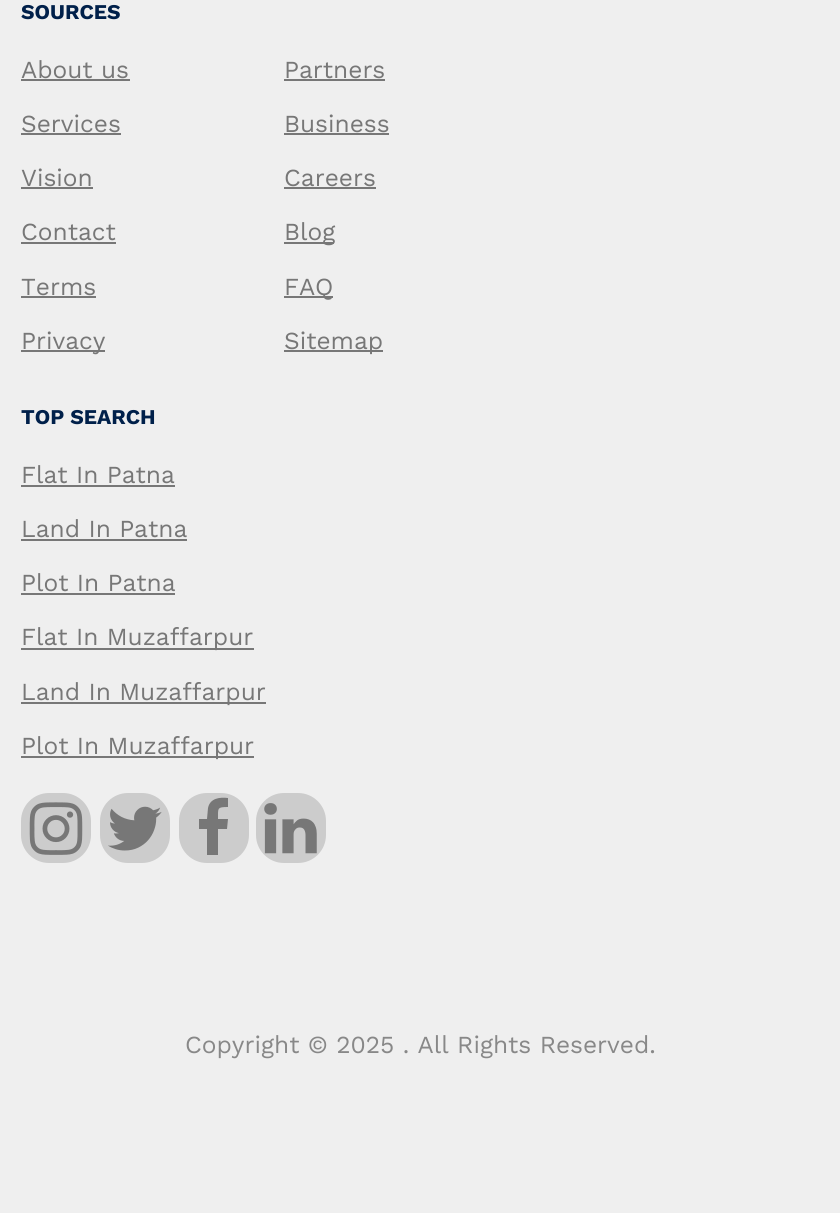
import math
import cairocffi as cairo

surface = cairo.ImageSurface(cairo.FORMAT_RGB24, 840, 1213)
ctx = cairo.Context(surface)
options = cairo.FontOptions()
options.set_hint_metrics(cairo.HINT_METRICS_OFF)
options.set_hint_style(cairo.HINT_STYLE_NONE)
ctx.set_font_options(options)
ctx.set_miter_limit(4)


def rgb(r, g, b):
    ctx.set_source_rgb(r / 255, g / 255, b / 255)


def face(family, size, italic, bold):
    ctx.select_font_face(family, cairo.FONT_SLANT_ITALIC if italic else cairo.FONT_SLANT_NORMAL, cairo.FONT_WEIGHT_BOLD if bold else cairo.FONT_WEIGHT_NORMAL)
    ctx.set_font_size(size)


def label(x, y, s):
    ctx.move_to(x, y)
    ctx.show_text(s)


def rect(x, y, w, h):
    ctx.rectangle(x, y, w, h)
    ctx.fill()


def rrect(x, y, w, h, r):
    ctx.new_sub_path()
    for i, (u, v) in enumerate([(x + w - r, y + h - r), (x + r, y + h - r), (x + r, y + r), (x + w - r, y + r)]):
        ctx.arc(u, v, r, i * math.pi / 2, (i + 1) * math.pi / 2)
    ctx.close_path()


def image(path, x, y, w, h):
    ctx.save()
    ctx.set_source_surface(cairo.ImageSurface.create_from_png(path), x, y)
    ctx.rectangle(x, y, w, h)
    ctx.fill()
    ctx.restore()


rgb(239, 239, 239)
ctx.paint()
face('Work Sans', 21, 0, 1)
rgb(0, 32, 74)
label(21, 19, 'SOURCES')
face('Work Sans', 24.5, 0, 0)
rgb(119, 119, 119)
label(21, 78, 'About us')
rect(21, 79, 109, 2)
label(21, 132, 'Services')
rect(21, 133, 100, 2)
label(21, 186, 'Vision')
rect(21, 187, 72, 2)
label(21, 240, 'Contact')
rect(21, 242, 95, 2)
label(21, 295, 'Terms')
rect(21, 296, 75, 2)
rect(21, 350, 84, 2)
label(21, 349, 'Privacy')
label(284, 78, 'Partners')
rect(284, 79, 101, 2)
label(284, 132, 'Business')
rect(284, 133, 105, 2)
label(284, 186, 'Careers')
rect(284, 187, 92, 2)
rect(284, 242, 50, 2)
label(284, 240, 'Blog')
rect(284, 296, 49, 2)
label(284, 295, 'FAQ')
rect(284, 350, 99, 2)
label(284, 349, 'Sitemap')
face('Work Sans', 21, 0, 1)
rgb(0, 32, 74)
label(21, 424, 'TOP SEARCH')
face('Work Sans', 24.5, 0, 0)
rgb(119, 119, 119)
label(21, 483, 'Flat In Patna')
rect(21, 485, 154, 2)
label(21, 537, 'Land In Patna')
rect(21, 539, 166, 2)
label(21, 591, 'Plot In Patna')
rect(21, 593, 154, 2)
rect(21, 648, 233, 2)
label(21, 645, 'Flat In Muzaffarpur')
rect(21, 702, 245, 2)
label(21, 700, 'Land In Muzaffarpur')
rect(21, 756, 233, 2)
label(21, 754, 'Plot In Muzaffarpur')
rgb(204, 204, 204)
rrect(21, 793, 70, 70, 28)
ctx.fill()
image('image0.png', 29, 802, 54, 53)
rrect(100, 793, 70, 70, 28)
ctx.fill()
image('image1.png', 108, 806, 54, 45)
rrect(179, 793, 70, 70, 28)
ctx.fill()
rgb(119, 119, 119)
ctx.new_path()
ctx.move_to(228, 798)
ctx.line_to(228, 807)
ctx.curve_to(217, 807, 218, 808, 218, 819)
ctx.line_to(228, 819)
ctx.line_to(227, 829)
ctx.line_to(218, 829)
ctx.line_to(218, 855)
ctx.line_to(207, 855)
ctx.line_to(207, 829)
ctx.line_to(199, 829)
ctx.line_to(199, 819)
ctx.line_to(207, 819)
ctx.line_to(208, 808)
ctx.curve_to(210, 798, 220, 797, 228, 798)
ctx.close_path()
ctx.fill()
rgb(204, 204, 204)
rrect(256, 793, 70, 70, 28)
ctx.fill()
image('image2.png', 264, 803, 53, 51)
rgb(136, 136, 136)
label(185, 1053, 'Copyright © 2025 . All Rights Reserved.')
surface.write_to_png('render.png')
